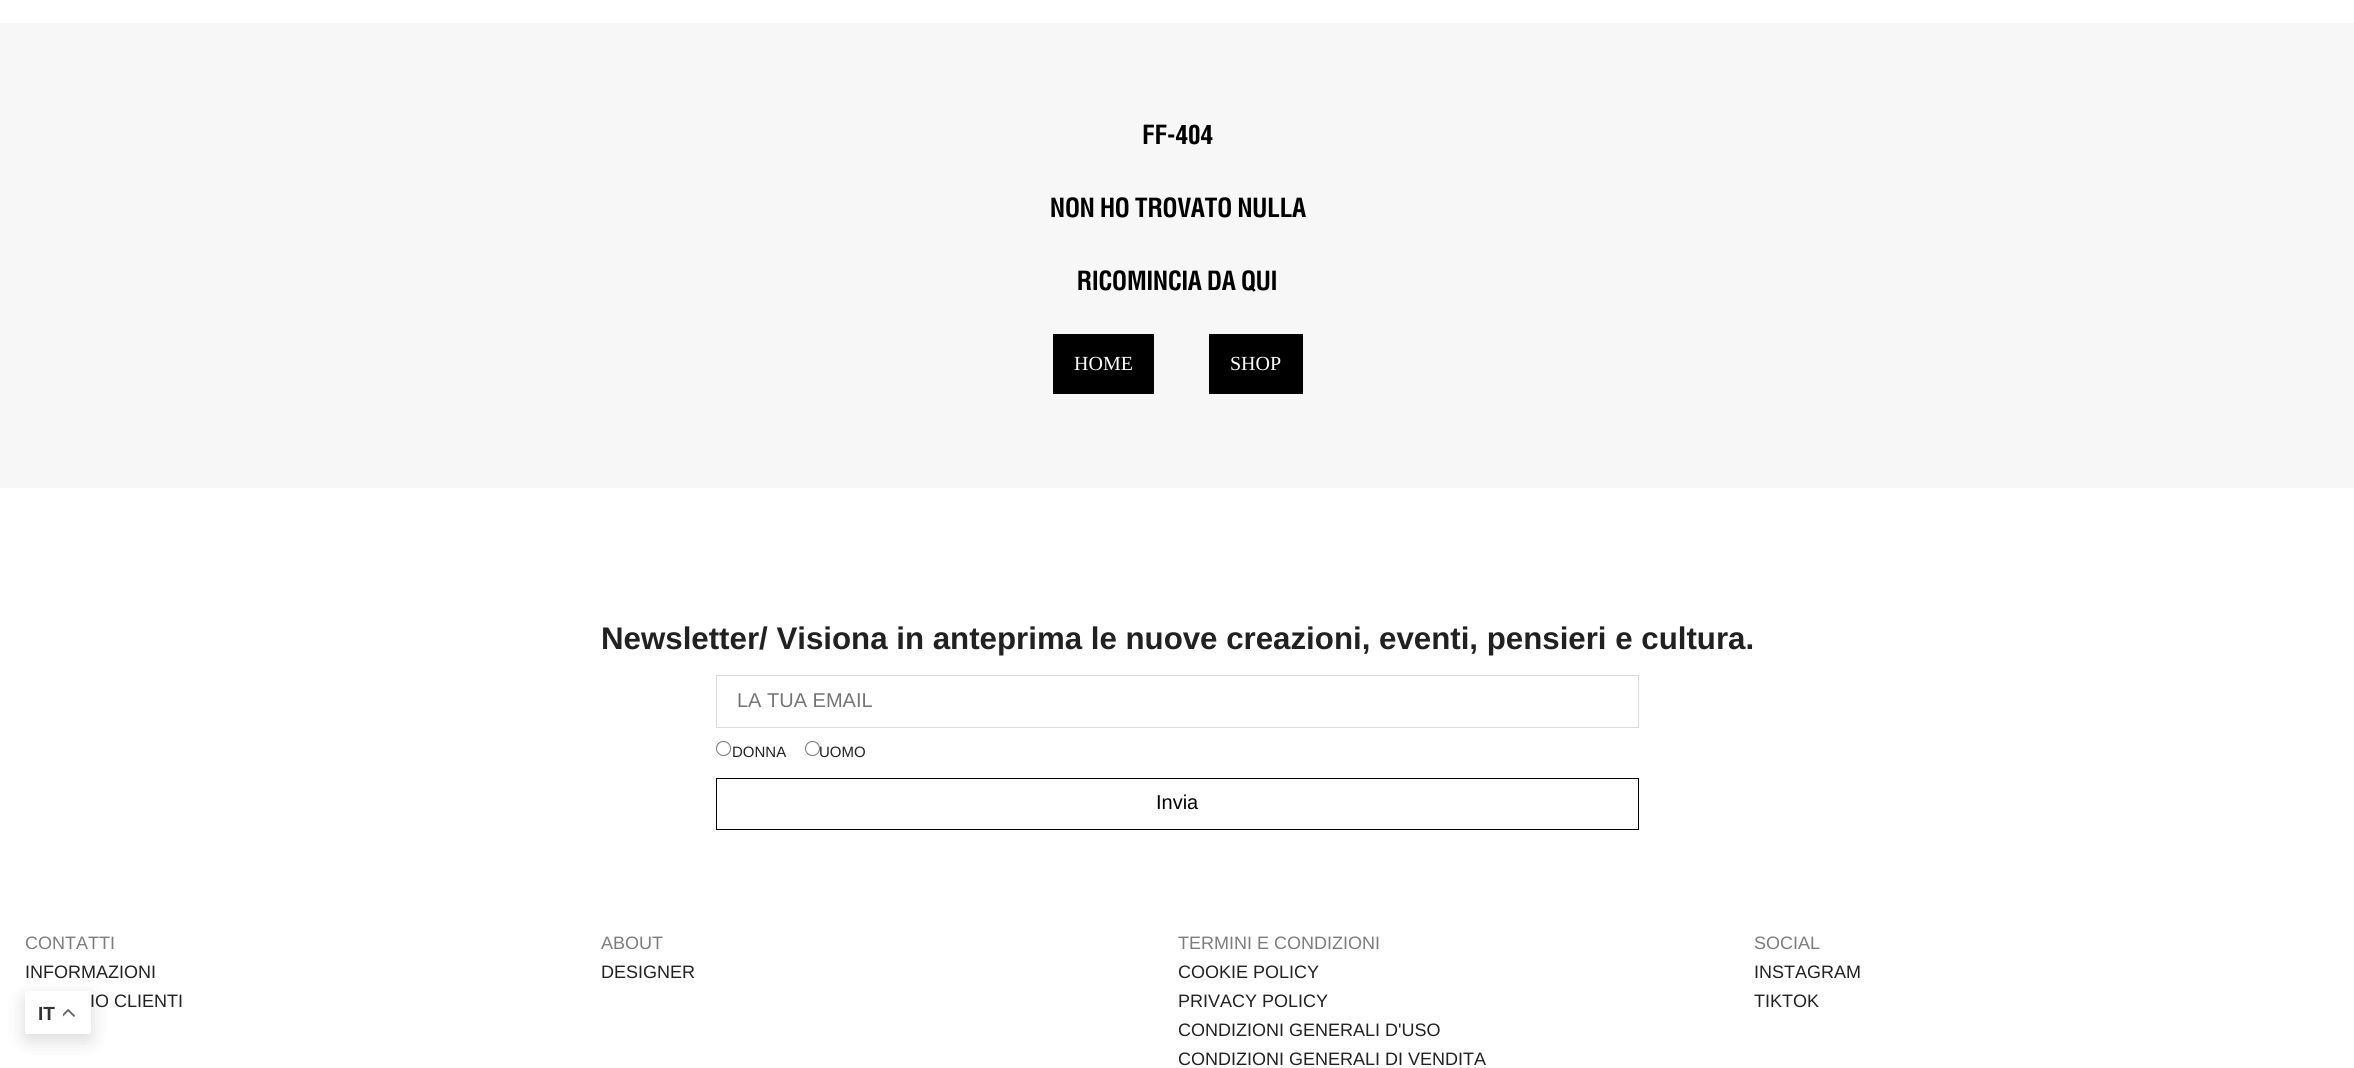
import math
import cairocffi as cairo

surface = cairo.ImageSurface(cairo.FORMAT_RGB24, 2354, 1068)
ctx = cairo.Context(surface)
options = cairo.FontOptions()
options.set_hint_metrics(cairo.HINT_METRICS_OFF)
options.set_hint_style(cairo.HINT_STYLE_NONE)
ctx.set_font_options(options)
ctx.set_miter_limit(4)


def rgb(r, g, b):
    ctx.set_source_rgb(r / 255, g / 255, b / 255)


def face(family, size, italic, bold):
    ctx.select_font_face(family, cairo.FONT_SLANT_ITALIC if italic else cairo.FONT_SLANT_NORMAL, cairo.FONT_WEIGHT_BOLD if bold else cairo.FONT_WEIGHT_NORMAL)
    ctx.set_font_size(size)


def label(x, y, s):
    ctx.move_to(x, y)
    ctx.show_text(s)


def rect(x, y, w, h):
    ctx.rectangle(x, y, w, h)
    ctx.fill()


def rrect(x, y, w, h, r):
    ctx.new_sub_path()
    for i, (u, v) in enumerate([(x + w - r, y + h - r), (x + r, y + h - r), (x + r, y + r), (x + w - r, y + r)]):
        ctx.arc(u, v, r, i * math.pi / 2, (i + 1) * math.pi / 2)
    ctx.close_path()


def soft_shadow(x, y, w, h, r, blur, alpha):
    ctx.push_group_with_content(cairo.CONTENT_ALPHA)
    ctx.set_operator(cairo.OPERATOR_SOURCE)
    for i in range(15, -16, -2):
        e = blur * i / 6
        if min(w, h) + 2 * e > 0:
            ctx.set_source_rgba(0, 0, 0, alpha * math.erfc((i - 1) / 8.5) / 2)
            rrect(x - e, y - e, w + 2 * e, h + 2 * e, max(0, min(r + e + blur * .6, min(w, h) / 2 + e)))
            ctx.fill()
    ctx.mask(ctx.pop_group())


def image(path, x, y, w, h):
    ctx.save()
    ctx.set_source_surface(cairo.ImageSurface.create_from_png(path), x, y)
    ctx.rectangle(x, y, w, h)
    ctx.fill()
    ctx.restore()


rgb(255, 255, 255)
ctx.paint()
rgb(247, 247, 247)
rect(0, 23, 2354, 465)
face('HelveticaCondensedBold', 26, 0, 1)
rgb(0, 0, 0)
label(1142, 144, 'FF-404')
label(1050, 217, 'NON HO TROVATO NULLA')
label(1077, 290, 'RICOMINCIA DA QUI')
rect(1053, 334, 101, 60)
face('Liberation Serif', 20, 0, 0)
rgb(255, 255, 255)
label(1074, 370, 'HOME')
rgb(0, 0, 0)
rect(1209, 334, 94, 60)
rgb(255, 255, 255)
label(1230, 370, 'SHOP')
face('Liberation Sans', 31.25, 0, 1)
rgb(33, 33, 33)
label(601, 649, 'Newsletter/ Visiona in anteprima le nuove creazioni, eventi, pensieri e cultura.')
ctx.rectangle(716.5, 675.5, 922, 52)
rgb(218, 219, 221)
ctx.set_line_width(1)
ctx.stroke()
face('Liberation Sans', 20, 0, 0)
rgb(117, 117, 117)
label(737, 707, 'LA TUA EMAIL')
ctx.new_path()
ctx.arc(723.5, 748.5, 7, 0, 2 * math.pi)
rgb(118, 118, 118)
ctx.stroke()
face('Liberation Sans', 15, 0, 0)
rgb(33, 33, 33)
label(732, 757, 'DONNA')
ctx.new_path()
ctx.arc(812.5, 748.5, 7, 0, 2 * math.pi)
rgb(118, 118, 118)
ctx.stroke()
rgb(33, 33, 33)
label(819, 757, 'UOMO')
ctx.rectangle(716.5, 778.5, 922, 51)
rgb(0, 0, 0)
ctx.stroke()
face('Liberation Sans', 20, 0, 0)
label(1156, 809, 'Invia')
face('Liberation Sans', 18, 0, 0)
rgb(124, 124, 124)
label(25, 949, 'CONTATTI')
rgb(33, 33, 33)
label(25, 978, 'INFORMAZIONI')
label(90, 1007, 'IO CLIENTI')
rgb(124, 124, 124)
label(601, 949, 'ABOUT')
rgb(33, 33, 33)
label(601, 978, 'DESIGNER')
rgb(124, 124, 124)
label(1178, 949, 'TERMINI E CONDIZIONI')
rgb(33, 33, 33)
label(1178, 978, 'COOKIE POLICY')
label(1178, 1007, 'PRIVACY POLICY')
label(1178, 1036, 'CONDIZIONI GENERALI D\'USO')
label(1178, 1065, 'CONDIZIONI GENERALI DI VENDITA')
rgb(124, 124, 124)
label(1754, 949, 'SOCIAL')
rgb(33, 33, 33)
label(1754, 978, 'INSTAGRAM')
label(1754, 1007, 'TIKTOK')
rgb(0, 0, 0)
soft_shadow(25, 998, 66, 42, 2.5, 9.5, 0.15)
rgb(255, 255, 255)
rrect(25, 991, 66, 43, 2.5)
ctx.fill()
face('Liberation Sans', 19, 0, 1)
rgb(51, 51, 51)
label(38, 1020, 'IT')
image('image0.png', 63, 1008, 12, 9)
surface.write_to_png('render.png')
